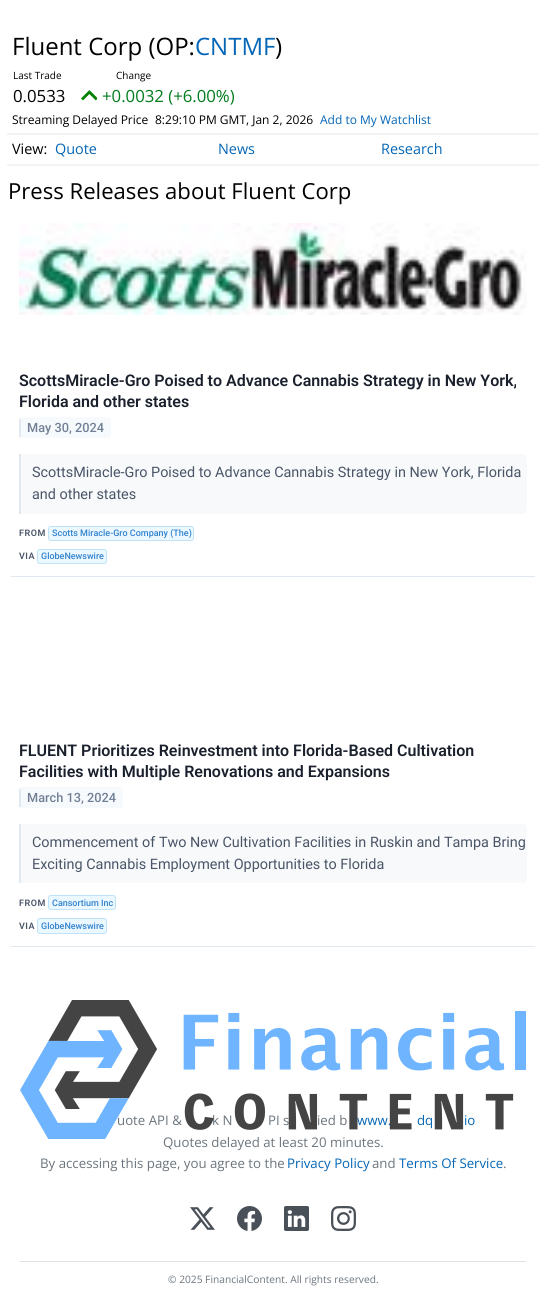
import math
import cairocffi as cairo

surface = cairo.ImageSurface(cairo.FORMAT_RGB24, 546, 1307)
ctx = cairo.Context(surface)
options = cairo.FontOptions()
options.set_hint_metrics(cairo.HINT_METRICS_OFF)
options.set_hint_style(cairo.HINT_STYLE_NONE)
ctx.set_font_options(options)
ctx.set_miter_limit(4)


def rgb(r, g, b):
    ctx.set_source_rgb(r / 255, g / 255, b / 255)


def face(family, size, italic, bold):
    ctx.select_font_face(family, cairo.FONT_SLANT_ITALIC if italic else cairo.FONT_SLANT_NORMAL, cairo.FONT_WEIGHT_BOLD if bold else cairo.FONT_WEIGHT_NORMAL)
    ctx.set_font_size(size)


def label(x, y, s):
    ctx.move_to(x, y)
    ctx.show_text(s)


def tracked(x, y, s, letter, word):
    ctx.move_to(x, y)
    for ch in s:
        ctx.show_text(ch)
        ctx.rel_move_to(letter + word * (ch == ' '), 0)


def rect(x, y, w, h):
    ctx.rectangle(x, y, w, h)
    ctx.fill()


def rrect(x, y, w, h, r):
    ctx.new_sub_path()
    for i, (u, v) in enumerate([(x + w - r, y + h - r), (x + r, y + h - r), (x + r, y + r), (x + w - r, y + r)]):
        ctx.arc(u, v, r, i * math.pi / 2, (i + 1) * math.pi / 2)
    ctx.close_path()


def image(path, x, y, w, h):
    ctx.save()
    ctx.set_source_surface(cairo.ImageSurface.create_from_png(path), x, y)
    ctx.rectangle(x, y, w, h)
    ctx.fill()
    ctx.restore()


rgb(255, 255, 255)
ctx.paint()
face('Open Sans', 24, 0, 0)
rgb(0, 0, 0)
label(12, 55, 'Fluent Corp (OP:')
rgb(4, 102, 182)
label(195, 55, 'CNTMF')
rgb(0, 0, 0)
label(275, 55, ')')
face('Open Sans', 10, 0, 0)
label(13, 79, 'Last Trade')
face('Open Sans', 16.75, 0, 0)
label(13, 102, '0.0533')
face('Open Sans', 10, 0, 0)
label(116, 79, 'Change')
image('image0.png', 81, 90, 16, 11)
face('Open Sans', 16.75, 0, 0)
rgb(0, 124, 29)
label(102, 102, '+0.0032 (+6.00%)')
face('Open Sans', 12, 0, 0)
rgb(0, 0, 0)
label(12, 124, 'Streaming Delayed Price')
label(155, 124, '8:29:10 PM GMT, Jan 2, 2026')
rgb(4, 102, 182)
label(320, 124, 'Add to My Watchlist')
rgb(243, 243, 243)
rect(7, 133, 532, 2)
rect(7, 164, 532, 2)
face('Open Sans', 14.4, 0, 0)
rgb(0, 0, 0)
label(12, 154, 'View:')
rgb(4, 102, 182)
label(55, 154, 'Quote')
label(218, 154, 'News')
label(381, 154, 'Research')
face('Open Sans', 22.1, 0, 0)
rgb(0, 0, 0)
label(8, 199, 'Press Releases about Fluent Corp')
rgb(226, 232, 240)
rect(11, 576, 524, 1)
image('image1.png', 19, 223, 508, 92)
face('Roboto SemiBold', 16, 0, 0)
rgb(26, 32, 44)
label(19, 386, 'ScottsMiracle-Gro Poised to Advance Cannabis Strategy in New York,')
label(19, 407, 'Florida and other states')
rgb(247, 250, 252)
rrect(19, 417, 92, 21, 3)
ctx.fill()
rgb(226, 232, 240)
rect(19, 419, 2, 18)
face('Roboto Medium', 12.75, 0, 0)
rgb(113, 128, 150)
label(27, 432, 'May 30, 2024')
rgb(248, 249, 250)
ctx.new_path()
ctx.move_to(19, 454)
ctx.line_to(523, 454)
ctx.curve_to(525, 454, 527, 456, 527, 458)
ctx.line_to(527, 510)
ctx.curve_to(527, 512, 525, 514, 523, 514)
ctx.line_to(19, 514)
ctx.close_path()
ctx.fill()
rgb(226, 232, 240)
rect(19, 454, 2, 60)
face('Roboto', 14.4, 0, 0)
rgb(74, 85, 104)
label(32, 477, 'ScottsMiracle-Gro Poised to Advance Cannabis Strategy in New York, Florida')
label(32, 499, 'and other states')
face('Roboto SemiBold', 9, 0, 0)
tracked(19, 536, 'FROM', 0.5, 0)
rgb(235, 248, 255)
rrect(48.5, 526.5, 145, 14, 2.5)
ctx.fill_preserve()
rgb(190, 227, 248)
ctx.set_line_width(1)
ctx.stroke()
face('Roboto Medium', 9, 0, 0)
rgb(49, 130, 206)
label(52, 536, 'Scotts Miracle-Gro Company (The)')
face('Roboto SemiBold', 9, 0, 0)
rgb(74, 85, 104)
tracked(19, 559, 'VIA', 0.5, 0)
rgb(235, 248, 255)
rrect(37.5, 549.5, 69, 14, 2.5)
ctx.fill_preserve()
rgb(190, 227, 248)
ctx.stroke()
face('Roboto Medium', 9, 0, 0)
rgb(49, 130, 206)
label(41, 559, 'GlobeNewswire')
rgb(226, 232, 240)
rect(11, 946, 524, 1)
face('Roboto SemiBold', 16, 0, 0)
rgb(26, 32, 44)
label(19, 756, 'FLUENT Prioritizes Reinvestment into Florida-Based Cultivation')
label(19, 777, 'Facilities with Multiple Renovations and Expansions')
rgb(247, 250, 252)
rrect(19, 787, 104, 21, 3)
ctx.fill()
rgb(226, 232, 240)
rect(19, 789, 2, 18)
face('Roboto Medium', 12.75, 0, 0)
rgb(113, 128, 150)
label(27, 802, 'March 13, 2024')
rgb(248, 249, 250)
ctx.new_path()
ctx.move_to(19, 824)
ctx.line_to(523, 824)
ctx.curve_to(525, 824, 527, 826, 527, 828)
ctx.line_to(527, 879)
ctx.curve_to(527, 881, 525, 883, 523, 883)
ctx.line_to(19, 883)
ctx.close_path()
ctx.fill()
rgb(226, 232, 240)
rect(19, 824, 2, 59)
face('Roboto', 14.4, 0, 0)
rgb(74, 85, 104)
label(32, 847, 'Commencement of Two New Cultivation Facilities in Ruskin and Tampa Bring')
label(32, 869, 'Exciting Cannabis Employment Opportunities to Florida')
face('Roboto SemiBold', 9, 0, 0)
tracked(19, 906, 'FROM', 0.5, 0)
rgb(235, 248, 255)
rrect(48.5, 895.5, 67, 14, 2.5)
ctx.fill_preserve()
rgb(190, 227, 248)
ctx.stroke()
face('Roboto Medium', 9, 0, 0)
rgb(49, 130, 206)
label(52, 906, 'Cansortium Inc')
face('Roboto SemiBold', 9, 0, 0)
rgb(74, 85, 104)
tracked(19, 929, 'VIA', 0.5, 0)
rgb(235, 248, 255)
rrect(37.5, 918.5, 69, 15, 2.5)
ctx.fill_preserve()
rgb(190, 227, 248)
ctx.stroke()
face('Roboto Medium', 9, 0, 0)
rgb(49, 130, 206)
label(41, 929, 'GlobeNewswire')
face('Open Sans', 13.25, 0, 0)
rgb(108, 117, 125)
label(117, 1125, 'uote API &')
label(212, 1125, 'k N')
label(268, 1125, 'PI s')
label(317, 1125, 'ied b')
rgb(4, 102, 182)
label(357, 1125, 'www.')
label(417, 1125, 'dq')
label(464, 1125, 'io')
rgb(108, 117, 125)
label(163, 1147, 'Quotes delayed at least 20 minutes.')
image('image2.png', 20, 1000, 506, 139)
label(40, 1168, 'By accessing this page, you agree to the')
rgb(4, 102, 182)
label(287, 1168, 'Privacy Policy')
rgb(108, 117, 125)
label(372, 1168, 'and')
rgb(4, 102, 182)
label(399, 1168, 'Terms Of Service')
rgb(108, 117, 125)
label(503, 1168, '.')
image('image3.png', 190, 1207, 25, 23)
image('image4.png', 237, 1206, 25, 25)
image('image5.png', 284, 1206, 25, 25)
image('image6.png', 331, 1206, 25, 25)
rgb(222, 226, 230)
rect(20, 1261, 506, 1)
face('Open Sans', 10.2, 0, 0)
rgb(108, 117, 125)
label(168, 1283, '© 2025 FinancialContent. All rights reserved.')
surface.write_to_png('render.png')
